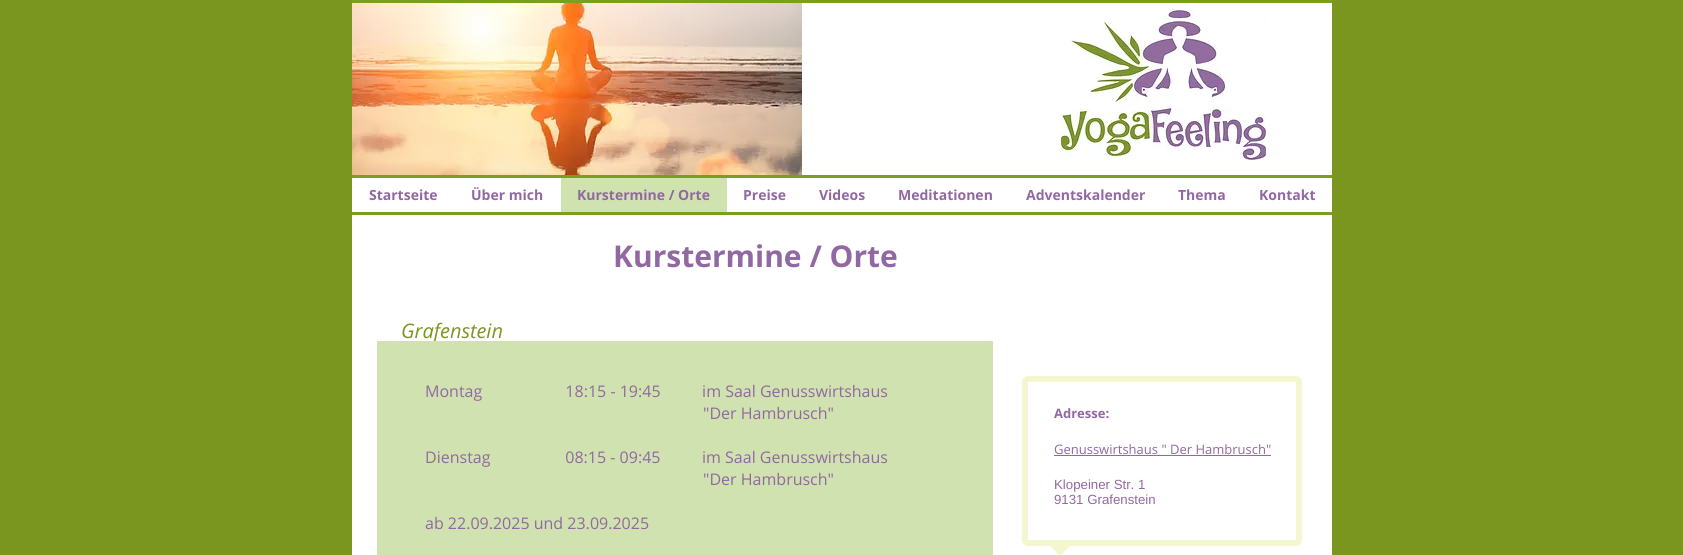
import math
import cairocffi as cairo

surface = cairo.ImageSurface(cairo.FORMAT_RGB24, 1683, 555)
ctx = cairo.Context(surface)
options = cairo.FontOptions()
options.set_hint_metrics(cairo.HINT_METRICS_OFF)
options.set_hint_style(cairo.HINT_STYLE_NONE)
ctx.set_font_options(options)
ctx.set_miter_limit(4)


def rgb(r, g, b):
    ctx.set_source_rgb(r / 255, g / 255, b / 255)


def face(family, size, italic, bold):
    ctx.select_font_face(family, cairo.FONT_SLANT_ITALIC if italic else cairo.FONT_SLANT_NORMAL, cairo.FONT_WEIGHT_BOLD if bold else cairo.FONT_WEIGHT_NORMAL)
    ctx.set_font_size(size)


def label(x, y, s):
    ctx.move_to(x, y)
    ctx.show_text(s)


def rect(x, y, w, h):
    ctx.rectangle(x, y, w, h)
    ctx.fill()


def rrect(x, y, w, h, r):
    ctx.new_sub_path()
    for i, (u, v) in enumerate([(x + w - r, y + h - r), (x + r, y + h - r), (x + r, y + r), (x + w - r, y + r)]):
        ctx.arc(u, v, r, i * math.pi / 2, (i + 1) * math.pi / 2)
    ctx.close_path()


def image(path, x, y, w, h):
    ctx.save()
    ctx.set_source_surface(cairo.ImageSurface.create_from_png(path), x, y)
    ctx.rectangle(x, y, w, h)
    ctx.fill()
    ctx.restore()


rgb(122, 150, 30)
ctx.paint()
rgb(255, 255, 255)
rect(352, 3, 980, 209)
rgb(122, 158, 30)
rect(352, 0, 980, 3)
image('image0.png', 352, 3, 450, 172)
image('image1.png', 1061, 10, 205, 150)
rect(352, 175, 980, 3)
rect(352, 212, 980, 3)
face('Open Sans', 14, 0, 1)
rgb(145, 104, 161)
label(369, 200, 'Startseite')
label(471, 200, 'Über mich')
rgb(208, 226, 176)
rect(561, 178, 166, 34)
rgb(145, 104, 161)
label(577, 200, 'Kurstermine / Orte')
label(743, 200, 'Preise')
label(819, 200, 'Videos')
label(898, 200, 'Meditationen')
label(1026, 200, 'Adventskalender')
label(1178, 200, 'Thema')
label(1259, 200, 'Kontakt')
rgb(255, 255, 255)
rect(352, 215, 980, 340)
face('Open Sans', 30, 0, 1)
rgb(145, 104, 161)
label(613, 267, 'Kurstermine / Orte')
face('Open Sans', 20, 1, 0)
rgb(122, 150, 30)
label(401, 338, 'Grafenstein')
rgb(208, 226, 176)
rect(377, 341, 616, 214)
face('Open Sans', 16, 0, 0)
rgb(145, 104, 161)
label(425, 397, 'Montag                    18:15 - 19:45          im Saal Genusswirtshaus')
label(703, 419, '"Der Hambrusch"')
label(425, 463, 'Dienstag                  08:15 - 09:45          im Saal Genusswirtshaus')
label(703, 485, '"Der Hambrusch"')
label(425, 529, 'ab 22.09.2025 und 23.09.2025')
rrect(1025, 379, 274, 164, 3)
rgb(243, 246, 207)
ctx.set_line_width(6)
ctx.stroke()
face('Open Sans', 13, 0, 1)
rgb(145, 104, 161)
label(1054, 418, 'Adresse:')
face('Open Sans', 13, 0, 0)
label(1054, 454, 'Genusswirtshaus " Der Hambrusch"')
rect(1054, 455, 217, 1)
face('Liberation Sans', 13.25, 0, 0)
label(1054, 489, 'Klopeiner Str. 1')
label(1054, 504, '9131 Grafenstein')
rgb(243, 246, 207)
ctx.new_path()
ctx.move_to(1050, 546)
ctx.line_to(1070, 546)
ctx.line_to(1060, 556)
ctx.close_path()
ctx.fill()
surface.write_to_png('render.png')
